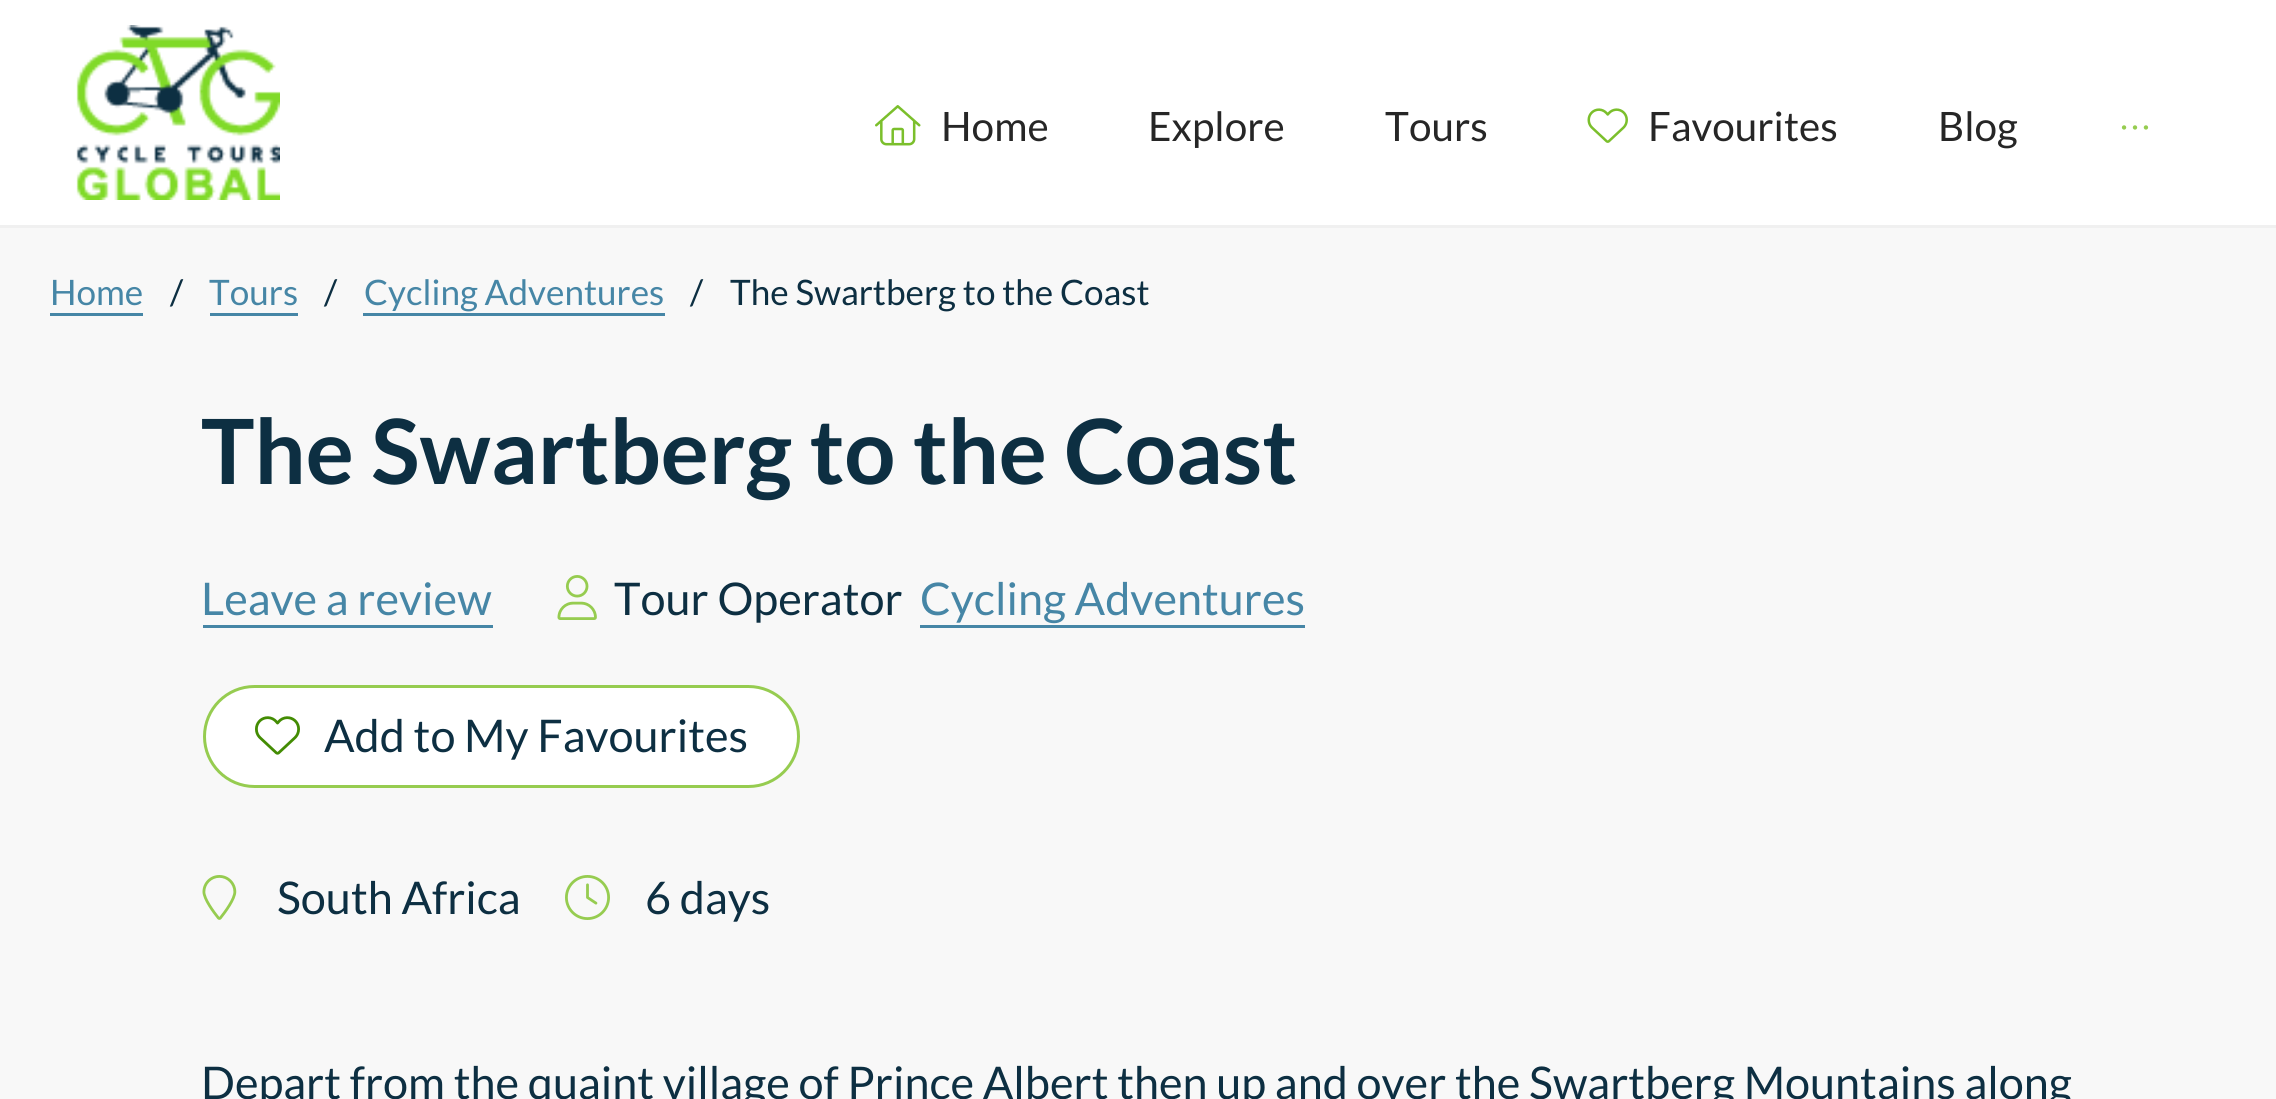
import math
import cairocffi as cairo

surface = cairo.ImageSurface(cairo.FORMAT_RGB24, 2276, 1099)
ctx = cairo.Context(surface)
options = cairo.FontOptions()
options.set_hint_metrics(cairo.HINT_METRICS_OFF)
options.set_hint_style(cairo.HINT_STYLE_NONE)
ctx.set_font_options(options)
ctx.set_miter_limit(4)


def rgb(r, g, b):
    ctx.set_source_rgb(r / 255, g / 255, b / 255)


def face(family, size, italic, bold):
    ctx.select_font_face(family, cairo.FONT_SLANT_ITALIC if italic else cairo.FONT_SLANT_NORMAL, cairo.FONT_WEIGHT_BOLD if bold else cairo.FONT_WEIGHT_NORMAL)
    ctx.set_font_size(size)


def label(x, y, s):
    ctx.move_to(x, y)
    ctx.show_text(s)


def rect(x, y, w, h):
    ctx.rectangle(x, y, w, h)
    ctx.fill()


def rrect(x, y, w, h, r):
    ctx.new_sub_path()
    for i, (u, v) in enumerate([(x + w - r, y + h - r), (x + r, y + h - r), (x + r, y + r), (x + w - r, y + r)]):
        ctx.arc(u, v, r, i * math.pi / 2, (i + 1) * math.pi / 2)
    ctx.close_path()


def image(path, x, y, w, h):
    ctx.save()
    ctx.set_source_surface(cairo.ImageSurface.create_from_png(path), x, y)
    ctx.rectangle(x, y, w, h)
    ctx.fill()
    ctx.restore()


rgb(255, 255, 255)
ctx.paint()
image('image0.png', 76, 25, 204, 175)
image('image1.png', 875, 105, 46, 41)
face('Lato', 40.5, 0, 0)
rgb(38, 38, 38)
label(941, 141, 'Home')
label(1148, 141, 'Explore')
label(1385, 141, 'Tours')
image('image2.png', 1587, 108, 41, 35)
label(1648, 141, 'Favourites')
label(1938, 141, 'Blog')
image('image3.png', 2121, 125, 28, 5)
rgb(248, 248, 248)
rect(0, 228, 2276, 871)
rgb(240, 240, 240)
rect(0, 225, 2276, 3)
face('Lato', 35.1, 0, 0)
rgb(70, 134, 166)
label(50, 305, 'Home')
rect(50, 313, 93, 3)
rgb(13, 47, 66)
label(170, 305, '/')
rgb(70, 134, 166)
label(209, 305, 'Tours')
rect(210, 313, 88, 3)
rgb(13, 47, 66)
label(324, 305, '/')
rgb(70, 134, 166)
label(364, 305, 'Cycling Adventures')
rect(363, 313, 302, 3)
rgb(13, 47, 66)
label(690, 305, '/')
label(730, 305, 'The Swartberg to the Coast')
face('Lato', 90, 0, 1)
label(201, 484, 'The Swartberg to the Coast')
face('Lato', 45, 0, 0)
rgb(70, 134, 166)
label(201, 615, 'Leave a review')
rect(203, 625, 290, 3)
image('image4.png', 557, 575, 40, 45)
rgb(13, 47, 66)
label(614, 615, 'Tour Operator')
rgb(70, 134, 166)
label(920, 615, 'Cycling Adventures')
rect(920, 625, 385, 3)
rgb(255, 255, 255)
rrect(204.5, 686.5, 594, 100, 50)
ctx.fill_preserve()
rgb(150, 204, 80)
ctx.set_line_width(3)
ctx.stroke()
image('image5.png', 255, 716, 45, 39)
rgb(13, 47, 66)
label(324, 752, 'Add to My Favourites')
image('image6.png', 202, 875, 35, 45)
label(277, 914, 'South Africa')
image('image7.png', 565, 875, 45, 45)
label(645, 914, '6 days')
label(201, 1099, 'Depart from the quaint village of Prince Albert then up and over the Swartberg Mountains along')
surface.write_to_png('render.png')
